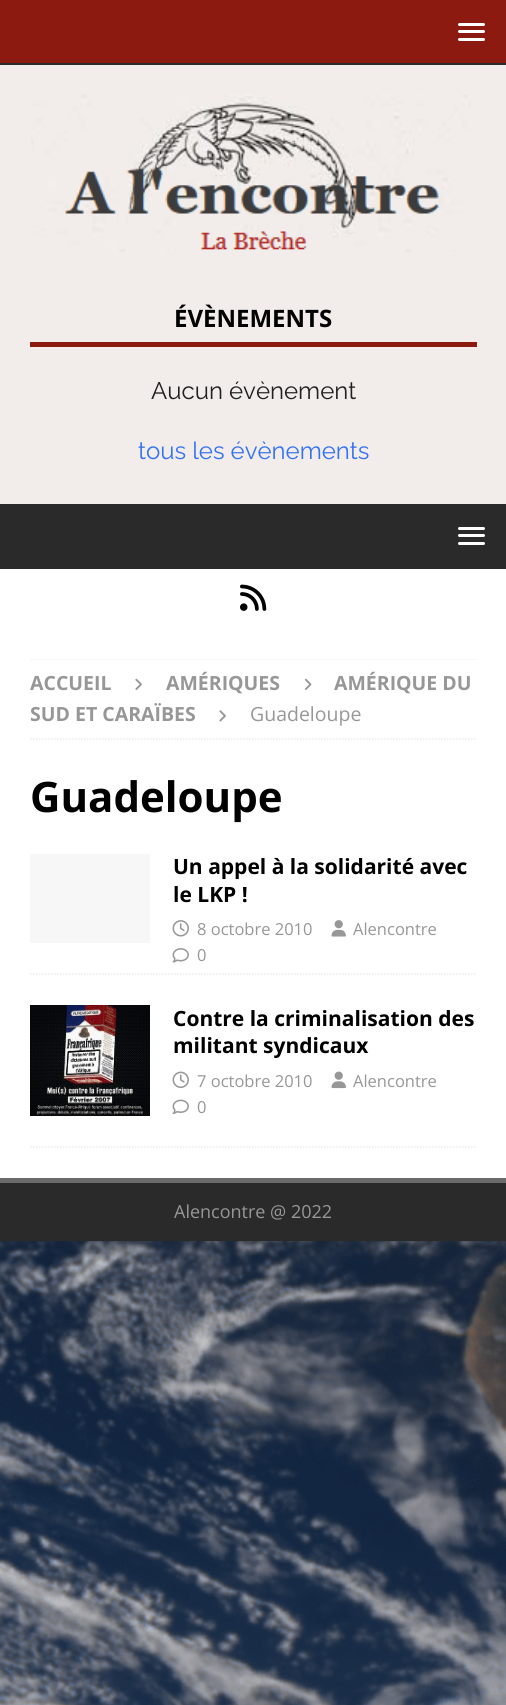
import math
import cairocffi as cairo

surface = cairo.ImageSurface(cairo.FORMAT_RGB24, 506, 1705)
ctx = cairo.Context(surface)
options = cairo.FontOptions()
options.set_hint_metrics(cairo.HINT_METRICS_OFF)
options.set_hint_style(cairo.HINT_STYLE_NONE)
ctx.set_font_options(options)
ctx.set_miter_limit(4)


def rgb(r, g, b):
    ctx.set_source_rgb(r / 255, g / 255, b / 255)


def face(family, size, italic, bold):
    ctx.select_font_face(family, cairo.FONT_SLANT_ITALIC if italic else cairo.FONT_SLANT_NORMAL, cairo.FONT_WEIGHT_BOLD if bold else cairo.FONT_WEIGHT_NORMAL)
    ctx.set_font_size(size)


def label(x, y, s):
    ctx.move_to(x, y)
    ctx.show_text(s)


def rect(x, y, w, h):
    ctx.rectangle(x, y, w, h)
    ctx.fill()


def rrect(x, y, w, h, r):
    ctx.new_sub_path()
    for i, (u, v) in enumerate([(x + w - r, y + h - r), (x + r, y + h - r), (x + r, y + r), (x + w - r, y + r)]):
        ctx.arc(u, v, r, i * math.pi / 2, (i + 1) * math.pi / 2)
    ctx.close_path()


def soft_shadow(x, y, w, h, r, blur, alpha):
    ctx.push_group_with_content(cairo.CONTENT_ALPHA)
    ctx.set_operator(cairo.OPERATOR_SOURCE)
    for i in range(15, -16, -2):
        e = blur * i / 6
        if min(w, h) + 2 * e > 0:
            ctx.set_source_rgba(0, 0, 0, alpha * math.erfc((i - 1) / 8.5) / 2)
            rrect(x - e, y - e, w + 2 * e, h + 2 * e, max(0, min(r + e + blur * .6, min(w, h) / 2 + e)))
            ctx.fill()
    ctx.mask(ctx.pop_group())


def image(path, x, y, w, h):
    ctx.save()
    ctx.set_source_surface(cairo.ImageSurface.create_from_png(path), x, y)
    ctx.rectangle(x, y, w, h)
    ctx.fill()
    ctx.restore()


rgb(255, 255, 255)
ctx.paint()
image('image0.png', 0, 1241, 506, 464)
rgb(50, 50, 50)
soft_shadow(0, 0, 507, 1241, 0, 7.5, 0.17)
rgb(141, 26, 16)
rect(0, 0, 506, 63)
rgb(42, 42, 42)
rect(0, 63, 506, 2)
rgb(255, 255, 255)
rrect(458, 23, 27, 3, 1.5)
ctx.fill()
rrect(458, 30, 27, 3, 1.5)
ctx.fill()
rrect(458, 38, 27, 3, 1.5)
ctx.fill()
rgb(242, 237, 234)
rect(0, 65, 506, 439)
image('image1.png', 31, 94, 440, 158)
rgb(141, 26, 16)
rect(30, 342, 447, 5)
face('Open Sans', 24, 0, 1)
rgb(0, 0, 0)
label(174, 327, 'ÉVÈNEMENTS')
face('Raleway', 24, 0, 0)
rgb(33, 33, 33)
label(151, 399, 'Aucun évènement')
rgb(51, 114, 240)
label(138, 459, 'tous les évènements')
rgb(42, 42, 42)
rect(0, 504, 506, 65)
rgb(255, 255, 255)
rrect(458, 527, 27, 3, 1.5)
ctx.fill()
rrect(458, 534, 27, 3, 1.5)
ctx.fill()
rrect(458, 542, 27, 3, 1.5)
ctx.fill()
rect(0, 569, 506, 609)
image('image2.png', 240, 584, 27, 27)
ctx.save()
ctx.rectangle(30, 659, 447, 489)
ctx.clip()
ctx.new_path()
ctx.move_to(30, 659)
ctx.line_to(477, 659)
rgb(235, 235, 235)
ctx.set_line_width(1.5)
ctx.set_dash([1.5, 1.5])
ctx.stroke()
ctx.restore()
ctx.new_path()
ctx.move_to(30, 739)
ctx.line_to(477, 739)
rgb(235, 235, 235)
ctx.set_line_width(1.5)
ctx.set_dash([1.5, 1.5])
ctx.stroke()
face('Open Sans', 19.5, 0, 1)
rgb(151, 151, 151)
label(30, 690, 'ACCUEIL')
image('image3.png', 135, 678, 7, 12)
label(166, 690, 'AMÉRIQUES')
image('image4.png', 304, 678, 8, 12)
label(334, 690, 'AMÉRIQUE DU')
label(30, 721, 'SUD ET CARAÏBES')
image('image5.png', 219, 710, 7, 12)
face('Open Sans', 19.5, 0, 0)
label(250, 721, 'Guadeloupe')
face('Open Sans', 42, 0, 1)
rgb(0, 0, 0)
label(30, 812, 'Guadeloupe')
ctx.new_path()
ctx.move_to(30, 974)
ctx.line_to(477, 974)
rgb(235, 235, 235)
ctx.stroke()
rgb(247, 247, 247)
rect(30, 854, 120, 89)
face('Open Sans', 21, 0, 1)
rgb(0, 0, 0)
label(173, 874, 'Un appel à la solidarité avec')
label(173, 902, 'le LKP !')
image('image6.png', 172, 920, 17, 17)
face('Open Sans', 16.5, 0, 0)
rgb(151, 151, 151)
label(197, 935, '8 octobre 2010')
image('image7.png', 331, 920, 15, 17)
label(353, 935, 'Alencontre')
image('image8.png', 172, 948, 17, 15)
label(197, 961, '0')
ctx.new_path()
ctx.move_to(30, 1147)
ctx.line_to(477, 1147)
rgb(235, 235, 235)
ctx.stroke()
image('image9.png', 30, 1005, 120, 111)
face('Open Sans', 21, 0, 1)
rgb(0, 0, 0)
label(173, 1026, 'Contre la criminalisation des')
label(173, 1053, 'militant syndicaux')
image('image10.png', 172, 1071, 17, 17)
face('Open Sans', 16.5, 0, 0)
rgb(151, 151, 151)
label(197, 1087, '7 octobre 2010')
image('image11.png', 331, 1071, 15, 18)
label(353, 1087, 'Alencontre')
image('image12.png', 172, 1099, 17, 15)
label(197, 1113, '0')
rgb(42, 42, 42)
rect(0, 1183, 506, 58)
rgb(106, 106, 106)
rect(0, 1178, 506, 5)
face('Open Sans', 18, 0, 0)
rgb(151, 151, 151)
label(174, 1218, 'Alencontre @ 2022')
surface.write_to_png('render.png')
